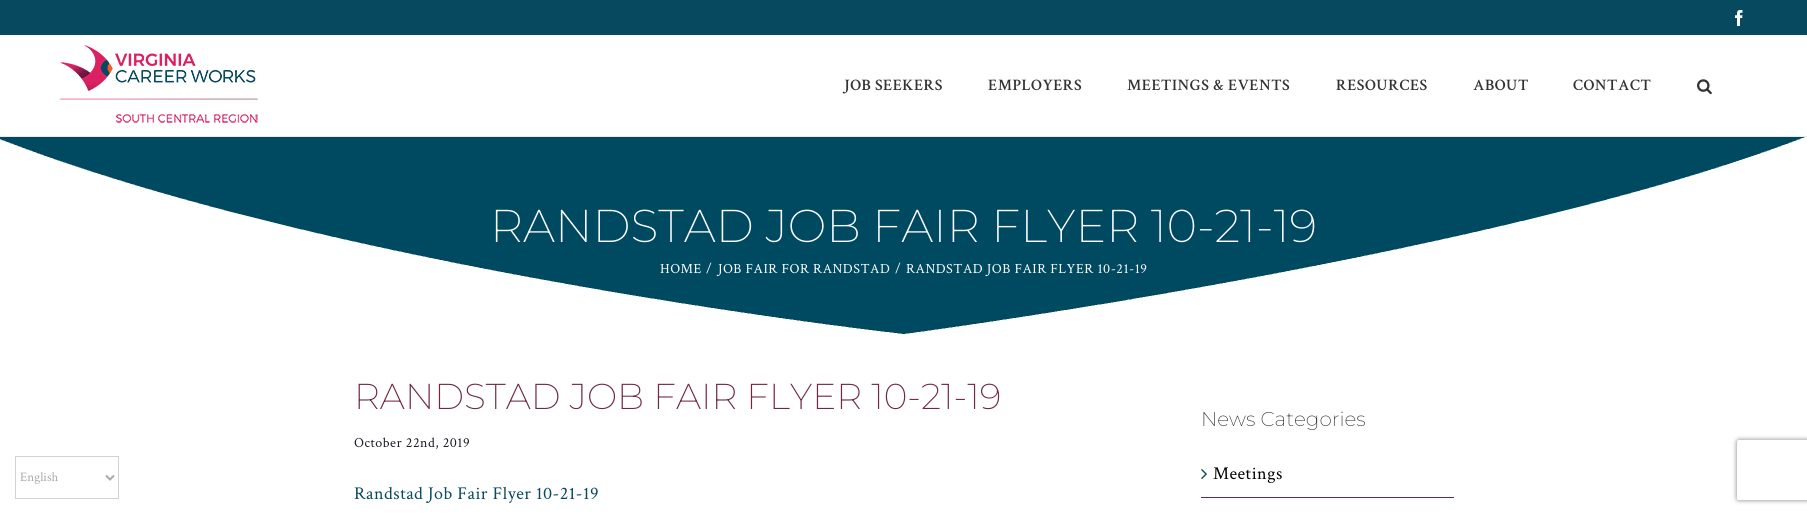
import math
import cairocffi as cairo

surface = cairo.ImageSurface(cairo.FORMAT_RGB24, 1807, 514)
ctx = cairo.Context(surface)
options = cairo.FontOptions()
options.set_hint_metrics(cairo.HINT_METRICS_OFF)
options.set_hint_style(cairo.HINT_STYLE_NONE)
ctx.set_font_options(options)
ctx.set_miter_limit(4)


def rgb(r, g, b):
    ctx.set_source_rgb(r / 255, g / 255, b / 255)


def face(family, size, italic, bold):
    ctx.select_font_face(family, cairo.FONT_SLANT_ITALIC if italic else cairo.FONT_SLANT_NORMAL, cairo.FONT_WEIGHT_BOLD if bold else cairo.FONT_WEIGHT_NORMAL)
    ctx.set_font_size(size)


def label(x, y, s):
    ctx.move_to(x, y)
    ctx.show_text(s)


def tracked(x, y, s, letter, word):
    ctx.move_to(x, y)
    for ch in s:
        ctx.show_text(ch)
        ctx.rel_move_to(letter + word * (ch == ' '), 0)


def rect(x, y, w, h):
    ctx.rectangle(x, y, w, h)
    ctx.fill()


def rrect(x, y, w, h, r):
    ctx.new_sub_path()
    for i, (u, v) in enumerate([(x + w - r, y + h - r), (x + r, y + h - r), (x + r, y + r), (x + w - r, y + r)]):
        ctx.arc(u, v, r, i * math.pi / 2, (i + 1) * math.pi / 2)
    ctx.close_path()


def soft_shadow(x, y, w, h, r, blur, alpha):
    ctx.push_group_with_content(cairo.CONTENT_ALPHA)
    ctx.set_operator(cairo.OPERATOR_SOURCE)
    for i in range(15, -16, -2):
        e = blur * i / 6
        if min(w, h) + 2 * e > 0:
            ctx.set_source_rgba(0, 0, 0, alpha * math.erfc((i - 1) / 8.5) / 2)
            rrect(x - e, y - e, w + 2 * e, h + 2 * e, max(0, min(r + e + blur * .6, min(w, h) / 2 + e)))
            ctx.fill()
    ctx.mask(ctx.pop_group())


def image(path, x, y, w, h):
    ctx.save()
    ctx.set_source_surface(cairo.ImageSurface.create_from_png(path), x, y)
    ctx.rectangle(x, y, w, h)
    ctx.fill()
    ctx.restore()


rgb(255, 255, 255)
ctx.paint()
ctx.rectangle(15.5, 456.5, 103, 42)
rgb(210, 210, 210)
ctx.set_line_width(1)
ctx.stroke()
ctx.new_path()
ctx.move_to(106, 475.5)
ctx.line_to(110, 479.5)
ctx.line_to(114, 475.5)
rgb(170, 169, 169)
ctx.set_line_width(2)
ctx.stroke()
face('Crimson Text', 13, 0, 0)
label(20, 481, 'English')
rgb(7, 73, 95)
rect(0, 0, 1807, 35)
image('image0.png', 1735, 10, 8, 16)
rgb(234, 234, 234)
rect(0, 136, 1807, 1)
image('image1.png', 60, 45, 198, 78)
face('Crimson Text SemiBold', 16, 0, 0)
rgb(51, 51, 51)
tracked(844, 90, 'JOB SEEKERS', 0.5, 0)
tracked(988, 90, 'EMPLOYERS', 0.5, 0)
tracked(1127, 90, 'MEETINGS & EVENTS', 0.5, 0)
tracked(1336, 90, 'RESOURCES', 0.5, 0)
tracked(1473, 90, 'ABOUT', 0.5, 0)
tracked(1573, 90, 'CONTACT', 0.5, 0)
image('image2.png', 1697, 79, 15, 16)
image('image3.png', 0, 137, 1805, 197)
face('Montserrat Thin', 46, 0, 0)
rgb(255, 255, 255)
label(490, 242, 'RANDSTAD JOB FAIR FLYER 10-21-19')
face('Crimson Text', 14, 0, 0)
tracked(660, 273, 'HOME', 0.5, 0)
tracked(706, 273, '/', 0.5, 0)
tracked(718, 273, 'JOB FAIR FOR RANDSTAD', 0.5, 0)
tracked(895, 273, '/', 0.5, 0)
tracked(906, 273, 'RANDSTAD JOB FAIR FLYER 10-21-19', 0.5, 0)
face('Montserrat Thin', 36, 0, 0)
rgb(112, 39, 65)
label(354, 409, 'RANDSTAD JOB FAIR FLYER 10-21-19')
face('Crimson Text', 14, 0, 0)
rgb(29, 29, 38)
tracked(354, 447, 'October 22nd, 2019', 0.5, 0)
face('Crimson Text', 18, 0, 0)
rgb(7, 73, 95)
tracked(354, 499, 'Randstad Job Fair Flyer 10-21-19', 0.5, 0)
face('Montserrat Thin', 20, 0, 0)
rgb(51, 51, 51)
label(1201, 426, 'News Categories')
rgb(112, 39, 65)
rect(1201, 497, 253, 1)
image('image4.png', 1201, 469, 6, 10)
face('Crimson Text', 18, 0, 0)
rgb(0, 0, 0)
tracked(1213, 479, 'Meetings', 0.5, 0)
ctx.save()
ctx.set_fill_rule(cairo.FILL_RULE_EVEN_ODD)
ctx.new_path()
ctx.move_to(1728, 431)
ctx.line_to(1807, 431)
ctx.line_to(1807, 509)
ctx.line_to(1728, 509)
ctx.close_path()
ctx.move_to(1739, 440)
ctx.line_to(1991, 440)
ctx.curve_to(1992, 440, 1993, 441, 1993, 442)
ctx.line_to(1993, 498)
ctx.curve_to(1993, 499, 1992, 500, 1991, 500)
ctx.line_to(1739, 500)
ctx.curve_to(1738, 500, 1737, 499, 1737, 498)
ctx.line_to(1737, 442)
ctx.curve_to(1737, 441, 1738, 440, 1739, 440)
ctx.close_path()
ctx.clip()
rgb(128, 128, 128)
soft_shadow(1737, 440, 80, 60, 2, 2.5, 1)
ctx.restore()
surface.write_to_png('render.png')
